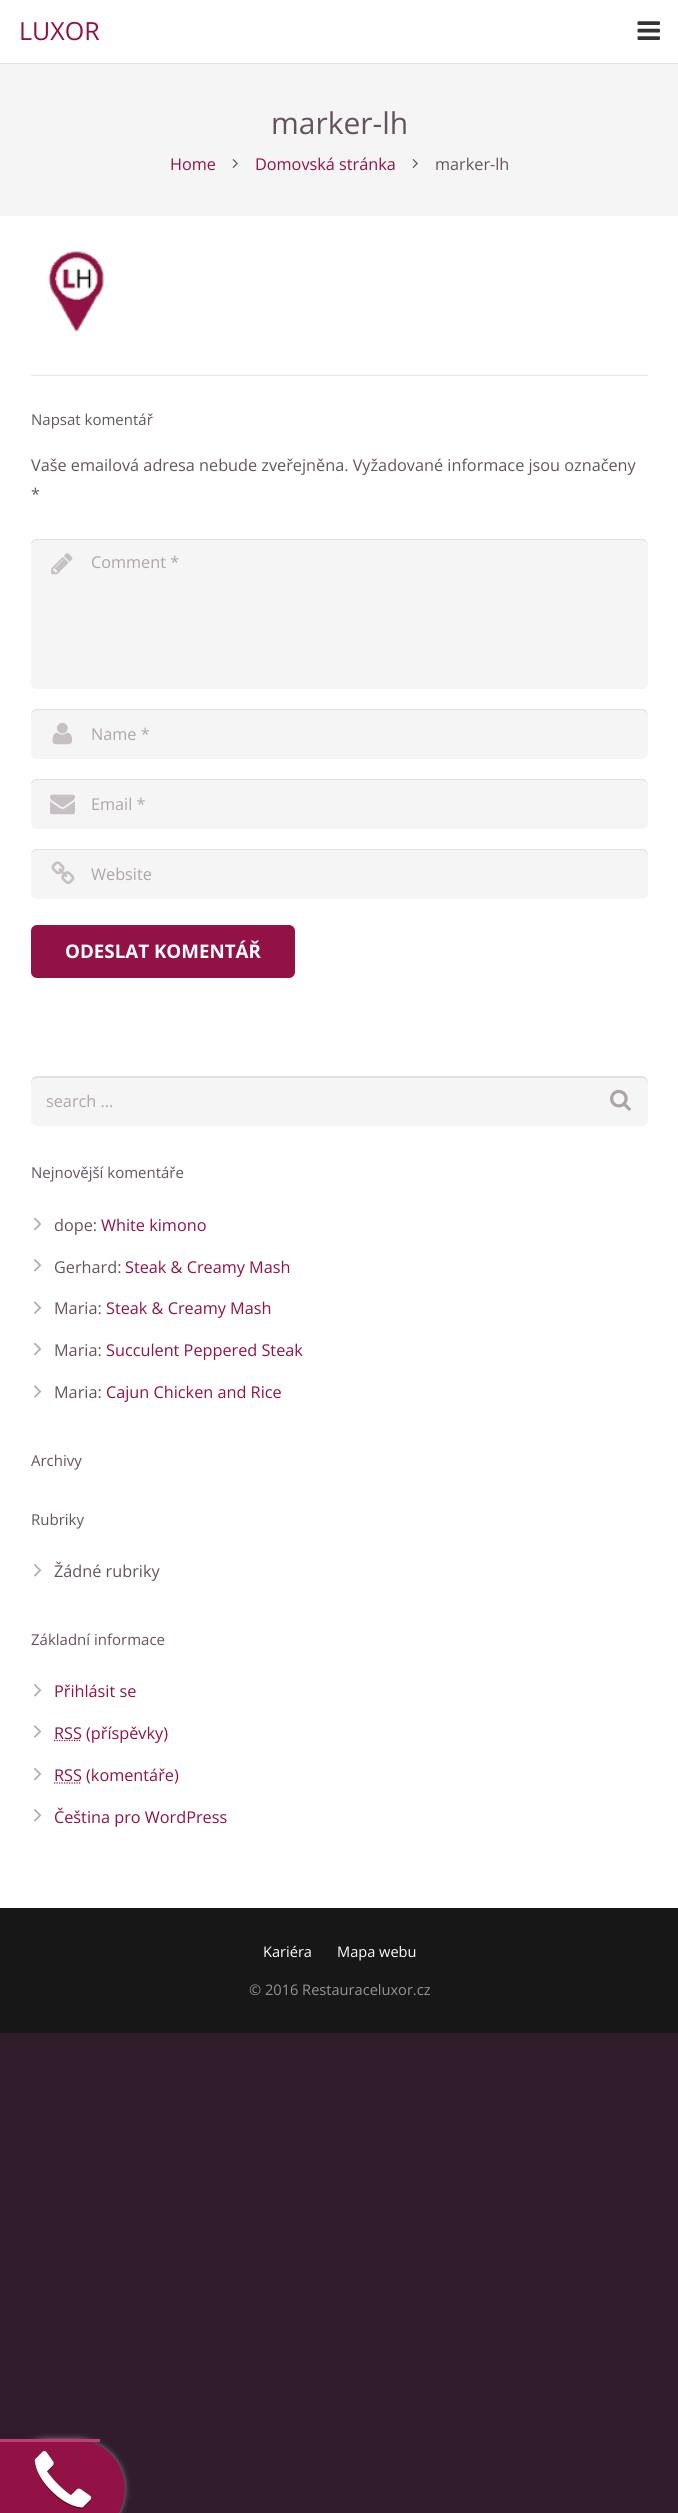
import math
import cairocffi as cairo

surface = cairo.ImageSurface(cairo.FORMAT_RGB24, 678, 2513)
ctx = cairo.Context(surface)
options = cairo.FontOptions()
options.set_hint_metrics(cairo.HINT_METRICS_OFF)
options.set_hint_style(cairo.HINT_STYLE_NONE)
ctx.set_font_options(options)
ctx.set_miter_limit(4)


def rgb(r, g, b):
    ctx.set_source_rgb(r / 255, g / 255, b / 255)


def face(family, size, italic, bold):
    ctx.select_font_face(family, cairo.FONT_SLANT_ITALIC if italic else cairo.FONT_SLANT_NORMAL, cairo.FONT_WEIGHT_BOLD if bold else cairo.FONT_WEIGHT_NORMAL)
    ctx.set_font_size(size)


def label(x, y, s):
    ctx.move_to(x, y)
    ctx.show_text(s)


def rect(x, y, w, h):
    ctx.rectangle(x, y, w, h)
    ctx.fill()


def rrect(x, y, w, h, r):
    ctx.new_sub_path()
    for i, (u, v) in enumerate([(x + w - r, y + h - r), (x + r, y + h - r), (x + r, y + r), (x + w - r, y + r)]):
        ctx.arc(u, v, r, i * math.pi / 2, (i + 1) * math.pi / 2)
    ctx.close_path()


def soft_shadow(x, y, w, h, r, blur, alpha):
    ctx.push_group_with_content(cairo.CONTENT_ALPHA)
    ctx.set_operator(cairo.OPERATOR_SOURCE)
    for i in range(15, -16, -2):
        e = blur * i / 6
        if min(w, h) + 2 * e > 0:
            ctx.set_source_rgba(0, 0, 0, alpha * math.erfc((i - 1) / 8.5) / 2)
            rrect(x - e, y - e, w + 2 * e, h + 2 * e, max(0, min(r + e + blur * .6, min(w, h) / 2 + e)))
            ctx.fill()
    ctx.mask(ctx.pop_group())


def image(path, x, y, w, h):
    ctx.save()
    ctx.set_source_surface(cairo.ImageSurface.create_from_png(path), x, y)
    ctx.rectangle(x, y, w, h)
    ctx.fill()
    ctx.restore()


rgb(48, 28, 42)
ctx.paint()
rgb(255, 255, 255)
rect(0, 216, 678, 1692)
rgb(245, 245, 245)
rect(0, 63, 678, 153)
ctx.set_source_rgba(0, 0, 0, 0.08)
ctx.new_path()
ctx.move_to(0, 62)
ctx.line_to(0, 64)
ctx.line_to(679, 64)
ctx.line_to(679, 1)
ctx.line_to(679, 62)
ctx.close_path()
ctx.fill()
rgb(255, 255, 255)
rect(0, 0, 678, 63)
face('Open Sans', 25, 0, 0)
rgb(146, 18, 69)
label(19, 40, 'LUXOR')
image('image0.png', 637, 21, 23, 19)
face('Open Sans', 30, 0, 0)
rgb(102, 82, 95)
label(271, 134, 'marker-lh')
face('Open Sans', 16.25, 0, 0)
rgb(146, 18, 69)
label(170, 170, 'Home')
image('image1.png', 232, 159, 6, 9)
label(255, 170, 'Domovská stránka')
image('image1.png', 412, 159, 6, 9)
rgb(102, 82, 95)
label(435, 170, 'marker-lh')
image('image2.png', 48, 251, 56, 81)
rgb(235, 230, 233)
rect(31, 375, 617, 1)
face('Open Sans', 15, 0, 0)
rgb(102, 82, 95)
label(31, 425, 'Napsat komentář')
face('Open Sans', 16.25, 0, 0)
label(31, 471, 'Vaše emailová adresa nebude zveřejněna. Vyžadované informace jsou označeny')
label(31, 500, '*')
rgb(245, 245, 245)
rrect(31, 539, 617, 150, 6)
ctx.fill()
image('image3.png', 51, 553, 22, 22)
rgb(225, 225, 225)
ctx.new_path()
ctx.move_to(38, 540)
ctx.line_to(641, 540)
ctx.curve_to(645, 540, 648, 543, 648, 546)
ctx.curve_to(648, 542, 646, 539, 642, 539)
ctx.line_to(37, 539)
ctx.curve_to(33, 539, 31, 542, 31, 546)
ctx.curve_to(31, 543, 34, 540, 38, 540)
ctx.close_path()
ctx.fill()
rgb(174, 164, 170)
label(91, 568, 'Comment *')
rgb(245, 245, 245)
rrect(31, 709, 617, 50, 6)
ctx.fill()
image('image4.png', 52, 722, 21, 23)
rgb(225, 225, 225)
ctx.new_path()
ctx.move_to(38, 710)
ctx.line_to(641, 710)
ctx.curve_to(645, 710, 648, 713, 648, 716)
ctx.curve_to(648, 712, 646, 709, 642, 709)
ctx.line_to(37, 709)
ctx.curve_to(33, 709, 31, 712, 31, 716)
ctx.curve_to(31, 713, 34, 710, 38, 710)
ctx.close_path()
ctx.fill()
rgb(174, 164, 170)
label(91, 740, 'Name *')
rgb(245, 245, 245)
rrect(31, 779, 617, 50, 6)
ctx.fill()
image('image5.png', 50, 794, 25, 21)
rgb(225, 225, 225)
ctx.new_path()
ctx.move_to(38, 780)
ctx.line_to(641, 780)
ctx.curve_to(645, 780, 648, 783, 648, 786)
ctx.curve_to(648, 782, 646, 779, 642, 779)
ctx.line_to(37, 779)
ctx.curve_to(33, 779, 31, 782, 31, 786)
ctx.curve_to(31, 783, 34, 780, 38, 780)
ctx.close_path()
ctx.fill()
rgb(174, 164, 170)
label(91, 810, 'Email *')
rgb(245, 245, 245)
rrect(31, 849, 617, 50, 6)
ctx.fill()
image('image6.png', 51, 861, 24, 23)
rgb(225, 225, 225)
ctx.new_path()
ctx.move_to(38, 850)
ctx.line_to(641, 850)
ctx.curve_to(645, 850, 648, 853, 648, 856)
ctx.curve_to(648, 852, 646, 849, 642, 849)
ctx.line_to(37, 849)
ctx.curve_to(33, 849, 31, 852, 31, 856)
ctx.curve_to(31, 853, 34, 850, 38, 850)
ctx.close_path()
ctx.fill()
rgb(174, 164, 170)
label(91, 880, 'Website')
rgb(146, 18, 69)
rrect(31, 925, 264, 53, 6)
ctx.fill()
face('Open Sans', 18.75, 0, 1)
rgb(255, 255, 255)
label(65, 958, 'ODESLAT KOMENTÁŘ')
rgb(245, 245, 245)
rrect(31, 1076, 617, 50, 6)
ctx.fill()
rgb(225, 225, 225)
ctx.new_path()
ctx.move_to(38, 1078)
ctx.line_to(641, 1078)
ctx.curve_to(645, 1078, 648, 1080, 648, 1084)
ctx.line_to(648, 1082)
ctx.curve_to(648, 1079, 645, 1076, 642, 1076)
ctx.line_to(37, 1076)
ctx.curve_to(34, 1076, 31, 1079, 31, 1082)
ctx.line_to(31, 1084)
ctx.curve_to(31, 1080, 34, 1078, 38, 1078)
ctx.close_path()
ctx.fill()
face('Open Sans', 16.25, 0, 0)
rgb(174, 164, 170)
label(46, 1107, 'search ...')
image('image7.png', 610, 1089, 21, 22)
face('Open Sans', 15, 0, 0)
rgb(102, 82, 95)
label(31, 1178, 'Nejnovější komentáře')
image('image8.png', 34, 1217, 8, 14)
face('Open Sans', 16.25, 0, 0)
label(54, 1231, 'dope:')
rgb(146, 18, 69)
label(101, 1231, 'White kimono')
image('image9.png', 34, 1259, 8, 13)
rgb(102, 82, 95)
label(54, 1273, 'Gerhard:')
rgb(146, 18, 69)
label(125, 1273, 'Steak & Creamy Mash')
image('image10.png', 34, 1301, 8, 13)
rgb(102, 82, 95)
label(54, 1314, 'Maria:')
rgb(146, 18, 69)
label(106, 1314, 'Steak & Creamy Mash')
image('image8.png', 34, 1342, 8, 14)
rgb(102, 82, 95)
label(54, 1356, 'Maria:')
rgb(146, 18, 69)
label(106, 1356, 'Succulent Peppered Steak')
image('image11.png', 34, 1385, 8, 13)
rgb(102, 82, 95)
label(54, 1398, 'Maria:')
rgb(146, 18, 69)
label(106, 1398, 'Cajun Chicken and Rice')
face('Open Sans', 15, 0, 0)
rgb(102, 82, 95)
label(31, 1466, 'Archivy')
label(31, 1525, 'Rubriky')
image('image9.png', 34, 1564, 8, 13)
face('Open Sans', 16.25, 0, 0)
label(54, 1577, 'Žádné rubriky')
face('Open Sans', 15, 0, 0)
label(31, 1645, 'Základní informace')
image('image9.png', 34, 1684, 8, 13)
face('Open Sans', 16.25, 0, 0)
rgb(146, 18, 69)
label(54, 1697, 'Přihlásit se')
image('image11.png', 34, 1725, 8, 13)
ctx.new_path()
ctx.move_to(54, 1740.5)
ctx.line_to(81.5, 1740.5)
ctx.set_line_width(1.2)
ctx.set_dash([1.25, 1.25])
ctx.stroke()
label(54, 1739, 'RSS (příspěvky)')
image('image8.png', 34, 1767, 8, 14)
ctx.new_path()
ctx.move_to(54, 1783)
ctx.line_to(81.5, 1783)
ctx.stroke()
label(54, 1781, 'RSS (komentáře)')
image('image9.png', 34, 1809, 8, 13)
label(54, 1823, 'Čeština pro WordPress')
rgb(23, 23, 23)
rect(0, 1908, 678, 125)
face('Open Sans', 14.6, 0, 0)
rgb(255, 255, 255)
label(263, 1957, 'Kariéra')
label(337, 1957, 'Mapa webu')
rgb(148, 148, 148)
label(249, 1995, '© 2016 Restauraceluxor.cz')
rgb(136, 136, 136)
soft_shadow(0, 2439, 125, 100, 50, 3, 1)
rgb(146, 18, 69)
ctx.new_path()
ctx.move_to(0, 2439)
ctx.line_to(75, 2439)
ctx.curve_to(102.5, 2439, 125, 2461.5, 125, 2489)
ctx.curve_to(125, 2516.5, 102.5, 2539, 75, 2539)
ctx.line_to(0, 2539)
ctx.close_path()
ctx.fill()
image('image12.png', 34, 2451, 58, 58)
rgb(191, 63, 114)
rect(0, 2439, 100, 3)
surface.write_to_png('render.png')
